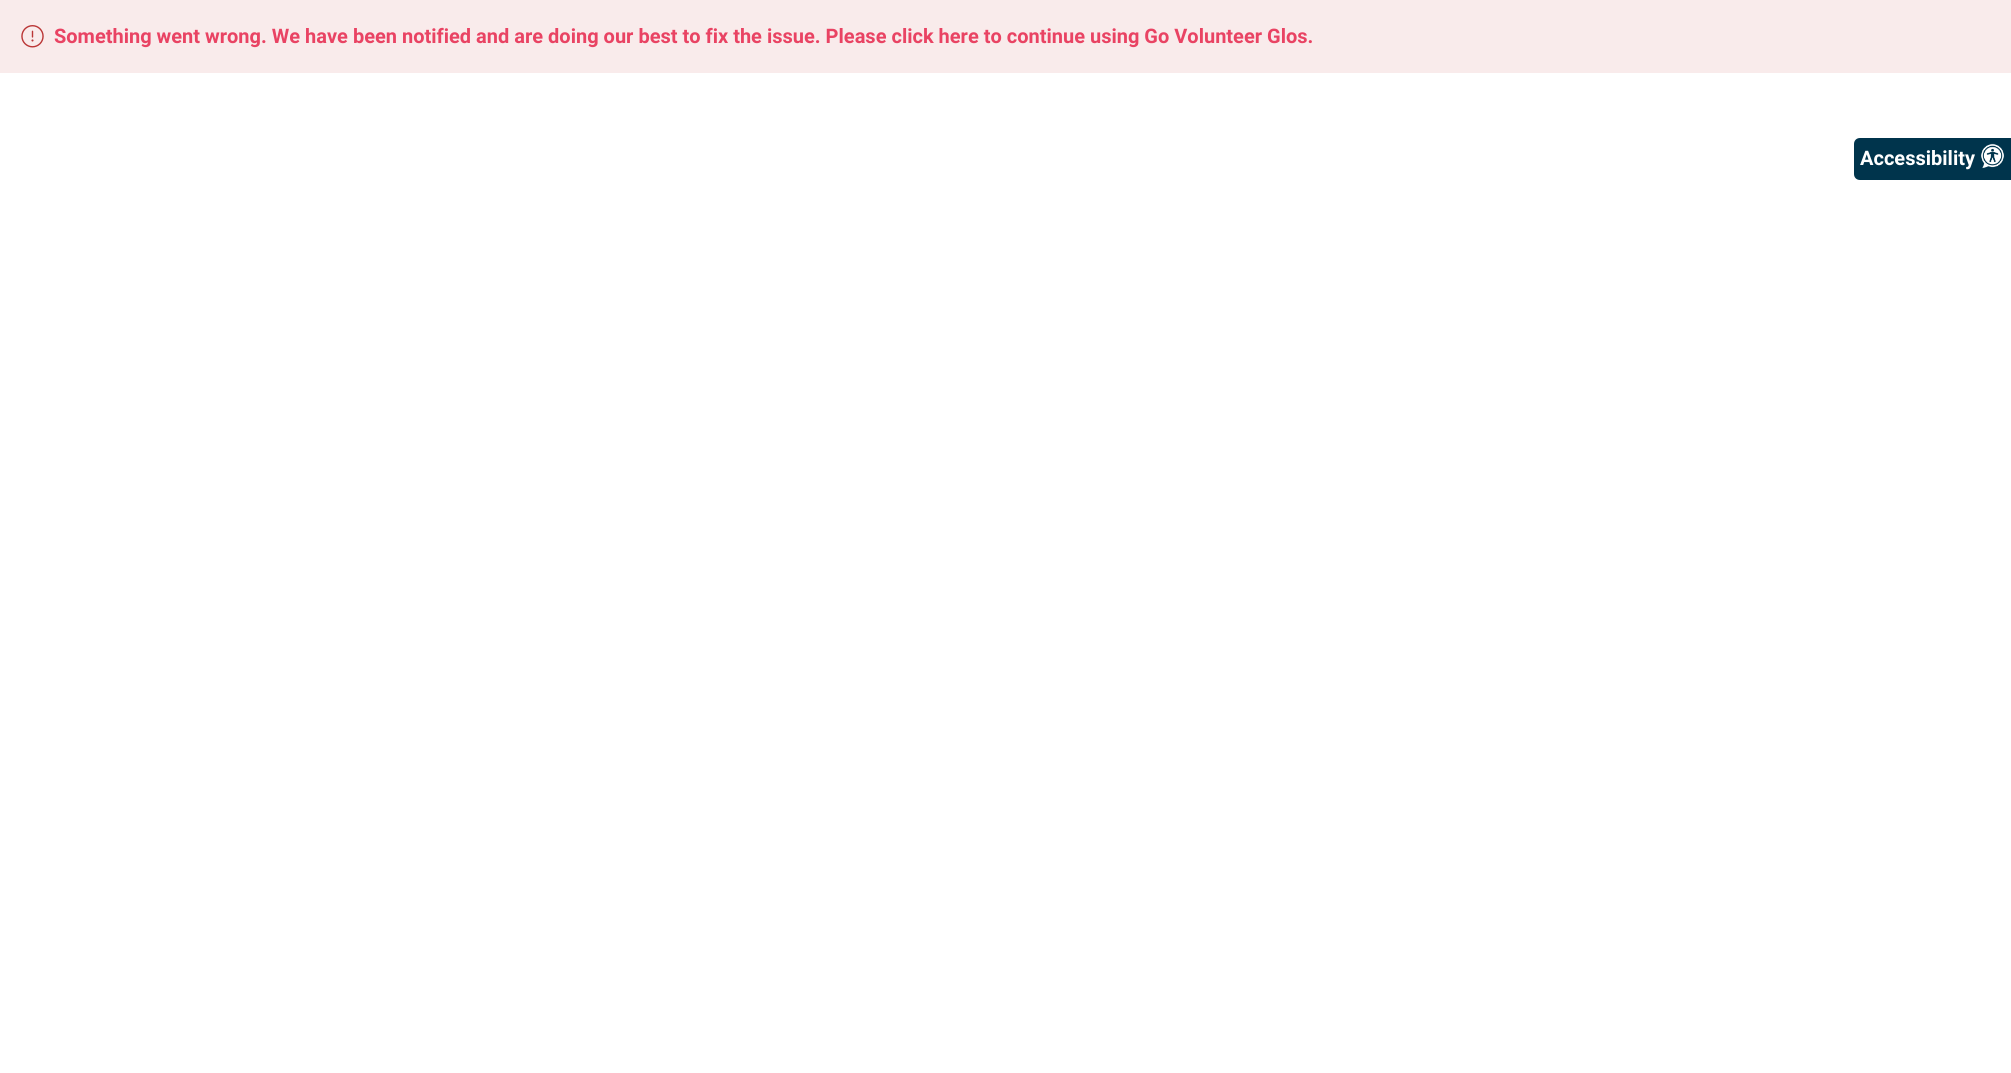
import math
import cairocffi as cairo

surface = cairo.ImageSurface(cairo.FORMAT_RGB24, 2011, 1073)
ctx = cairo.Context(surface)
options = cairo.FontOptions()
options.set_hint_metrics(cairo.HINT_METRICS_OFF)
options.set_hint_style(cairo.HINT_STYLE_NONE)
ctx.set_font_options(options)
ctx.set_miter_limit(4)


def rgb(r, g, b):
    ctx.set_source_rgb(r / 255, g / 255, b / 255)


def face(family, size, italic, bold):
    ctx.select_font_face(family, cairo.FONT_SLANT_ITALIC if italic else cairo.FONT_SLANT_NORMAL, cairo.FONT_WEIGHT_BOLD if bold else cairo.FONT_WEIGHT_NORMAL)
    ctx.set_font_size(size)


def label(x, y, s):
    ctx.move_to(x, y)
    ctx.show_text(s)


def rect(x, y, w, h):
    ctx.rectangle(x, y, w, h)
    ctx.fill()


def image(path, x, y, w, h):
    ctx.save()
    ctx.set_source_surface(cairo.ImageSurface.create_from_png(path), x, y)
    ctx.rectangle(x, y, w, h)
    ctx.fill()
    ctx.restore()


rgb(255, 255, 255)
ctx.paint()
rgb(249, 235, 235)
rect(0, 0, 2011, 73)
image('image0.png', 21, 25, 23, 23)
face('Roboto', 20, 0, 1)
rgb(233, 67, 99)
label(54, 43, 'Something went wrong. We have been notified and are doing our best to fix the issue. Please click here to continue using Go Volunteer Glos.')
rgb(0, 52, 76)
ctx.new_path()
ctx.move_to(1860, 138)
ctx.line_to(2011, 138)
ctx.line_to(2011, 180)
ctx.line_to(1860, 180)
ctx.curve_to(1856.5, 180, 1854, 177.5, 1854, 174)
ctx.line_to(1854, 144)
ctx.curve_to(1854, 140.5, 1856.5, 138, 1860, 138)
ctx.close_path()
ctx.fill()
rgb(255, 255, 255)
label(1860, 165, 'Accessibility')
image('image1.png', 1981, 143, 23, 26)
surface.write_to_png('render.png')
